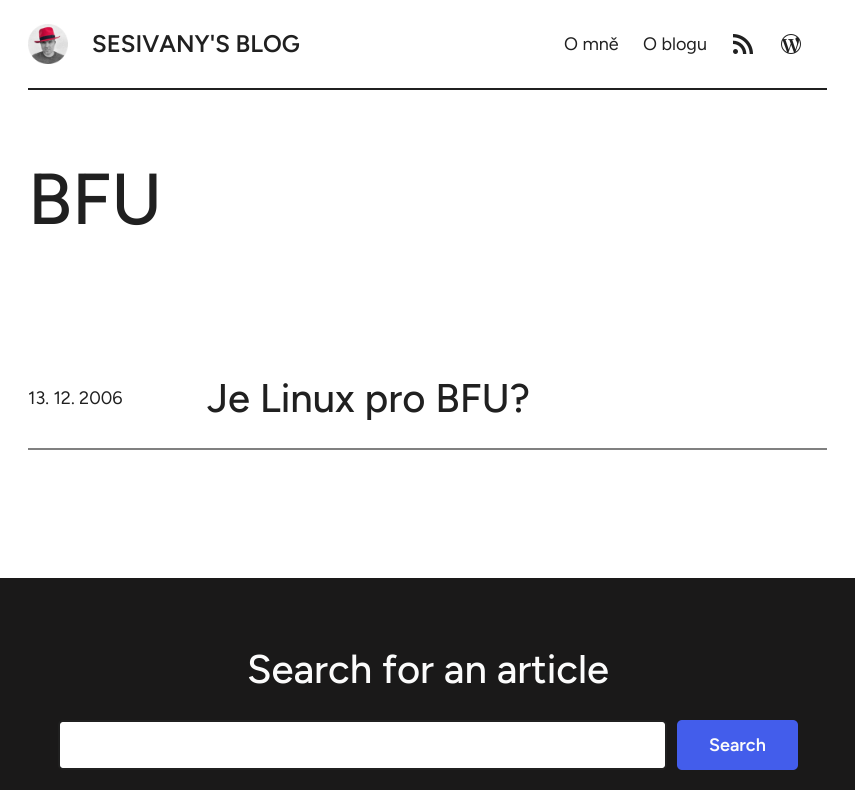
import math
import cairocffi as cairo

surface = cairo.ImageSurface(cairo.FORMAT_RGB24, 855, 790)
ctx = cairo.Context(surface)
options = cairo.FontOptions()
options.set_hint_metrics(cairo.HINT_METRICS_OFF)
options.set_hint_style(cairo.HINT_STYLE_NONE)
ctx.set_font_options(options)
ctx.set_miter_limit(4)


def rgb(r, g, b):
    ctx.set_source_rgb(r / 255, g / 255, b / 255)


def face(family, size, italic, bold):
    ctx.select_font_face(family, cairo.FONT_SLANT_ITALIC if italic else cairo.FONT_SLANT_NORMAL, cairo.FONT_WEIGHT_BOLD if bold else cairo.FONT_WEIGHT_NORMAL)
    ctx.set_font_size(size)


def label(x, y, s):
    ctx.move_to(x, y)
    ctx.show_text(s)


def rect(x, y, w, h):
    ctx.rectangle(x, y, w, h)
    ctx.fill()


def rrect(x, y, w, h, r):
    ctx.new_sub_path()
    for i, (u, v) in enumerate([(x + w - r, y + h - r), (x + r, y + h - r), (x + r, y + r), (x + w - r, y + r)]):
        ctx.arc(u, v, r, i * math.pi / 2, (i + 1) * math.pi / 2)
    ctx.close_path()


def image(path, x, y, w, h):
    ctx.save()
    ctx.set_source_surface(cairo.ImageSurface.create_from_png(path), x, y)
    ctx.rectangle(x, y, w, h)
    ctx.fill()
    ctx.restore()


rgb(255, 255, 255)
ctx.paint()
rgb(32, 32, 32)
rect(28, 88, 799, 2)
image('image0.png', 28, 24, 40, 40)
face('Figtree SemiBold', 24, 0, 0)
label(92, 52, 'SESIVANY\'S BLOG')
face('Figtree', 18, 0, 0)
label(564, 50, 'O mně')
label(643, 50, 'O blogu')
image('image1.png', 733, 34, 20, 20)
image('image2.png', 781, 34, 20, 20)
face('Figtree Medium', 72, 0, 0)
label(28, 224, 'BFU')
face('Figtree', 18, 0, 0)
label(28, 404, '13. 12. 2006')
face('Figtree Medium', 40, 0, 0)
label(207, 412, 'Je Linux pro BFU?')
rgb(128, 128, 128)
rect(28, 448, 799, 2)
rgb(26, 25, 25)
rect(0, 578, 855, 212)
rgb(251, 251, 251)
label(247, 683, 'Search for an article')
rgb(255, 255, 255)
rrect(59, 721, 607, 48, 4)
ctx.fill_preserve()
rgb(32, 32, 32)
ctx.stroke()
rgb(67, 93, 235)
rrect(677, 720, 121, 50, 5)
ctx.fill()
face('Figtree SemiBold', 18, 0, 0)
rgb(251, 251, 251)
label(709, 751, 'Search')
surface.write_to_png('render.png')
